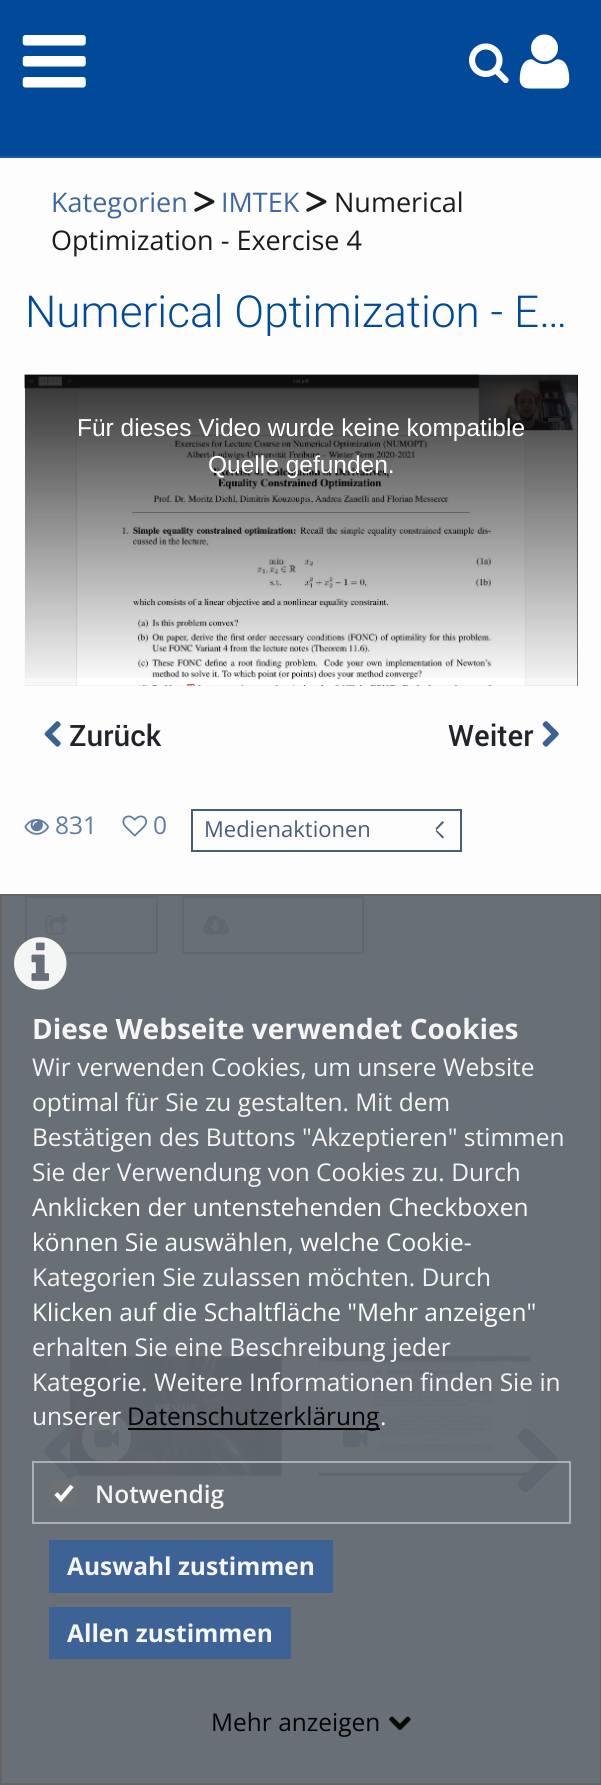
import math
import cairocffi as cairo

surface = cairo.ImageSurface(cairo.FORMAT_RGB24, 601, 1785)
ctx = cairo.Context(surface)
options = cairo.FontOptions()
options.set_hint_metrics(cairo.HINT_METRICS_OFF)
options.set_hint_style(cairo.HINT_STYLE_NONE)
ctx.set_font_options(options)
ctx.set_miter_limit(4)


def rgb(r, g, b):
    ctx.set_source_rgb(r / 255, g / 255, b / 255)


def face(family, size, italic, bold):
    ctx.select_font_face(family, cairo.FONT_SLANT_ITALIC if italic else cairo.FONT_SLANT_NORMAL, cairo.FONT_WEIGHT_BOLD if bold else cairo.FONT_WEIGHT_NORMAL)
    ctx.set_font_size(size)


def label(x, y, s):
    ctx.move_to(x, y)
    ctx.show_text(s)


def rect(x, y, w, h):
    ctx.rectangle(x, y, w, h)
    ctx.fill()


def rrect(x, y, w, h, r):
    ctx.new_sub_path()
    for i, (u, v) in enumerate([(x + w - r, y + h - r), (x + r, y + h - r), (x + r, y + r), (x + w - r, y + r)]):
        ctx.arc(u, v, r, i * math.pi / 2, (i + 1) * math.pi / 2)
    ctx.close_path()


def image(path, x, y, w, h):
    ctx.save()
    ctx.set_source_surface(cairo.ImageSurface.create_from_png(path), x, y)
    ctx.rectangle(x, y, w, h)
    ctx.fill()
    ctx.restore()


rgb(253, 253, 253)
ctx.paint()
rgb(0, 74, 153)
rect(0, 0, 601, 156)
rgb(26, 92, 163)
rect(0, 156, 601, 2)
image('image0.png', 22, 35, 64, 53)
image('image1.png', 469, 43, 40, 41)
image('image2.png', 519, 34, 51, 55)
rgb(105, 111, 118)
rect(2, 896, 598, 887)
face('Open Sans', 27, 0, 0)
rgb(63, 104, 162)
label(51, 212, 'Kategorien')
image('image3.png', 194, 191, 21, 21)
label(221, 212, 'IMTEK')
image('image3.png', 306, 191, 21, 21)
rgb(26, 28, 30)
label(334, 212, 'Numerical')
label(51, 250, 'Optimization - Exercise 4')
face('Roboto Light', 44.1, 0, 0)
rgb(0, 74, 153)
label(25, 327, 'Numerical Optimization - E…')
rgb(0, 0, 0)
rect(577, 375, 1, 311)
image('image4.png', 24, 374, 554, 312)
gradient = cairo.LinearGradient(301, 375, 301, 686)
gradient.add_color_stop_rgba(0, 0, 0, 0, 0.8)
gradient.add_color_stop_rgba(1, 0, 0, 0, 0)
ctx.set_source(gradient)
rect(25, 375, 553, 303)
face('Liberation Sans', 24.5, 0, 0)
rgb(255, 255, 255)
label(77, 436, 'Für dieses Video wurde keine kompatible')
label(208, 473, 'Quelle gefunden.')
image('image5.png', 44, 721, 17, 26)
face('Roboto Medium', 29.5, 0, 0)
rgb(33, 37, 41)
label(69, 746, 'Zurück')
label(448, 746, 'Weiter')
image('image6.png', 542, 721, 17, 26)
image('image7.png', 24, 819, 25, 16)
face('Open Sans', 24.5, 0, 0)
rgb(97, 124, 163)
label(55, 834, '831')
image('image8.png', 122, 815, 25, 22)
label(153, 834, '0')
ctx.rectangle(192, 810, 269, 41)
rgb(71, 93, 123)
ctx.stroke()
face('Open Sans', 22, 0, 0)
label(204, 837, 'Medienaktionen')
ctx.new_path()
ctx.move_to(436.5, 830)
ctx.line_to(444, 837)
ctx.line_to(442.5, 838.5)
ctx.line_to(435.5, 831)
ctx.close_path()
ctx.move_to(442.5, 821)
ctx.line_to(444, 822.5)
ctx.line_to(436.5, 830)
ctx.line_to(435.5, 828.5)
ctx.close_path()
ctx.fill()
ctx.rectangle(26, 897, 131, 56)
rgb(96, 103, 112)
ctx.stroke()
image('image9.png', 45, 913, 24, 22)
ctx.rectangle(183, 897, 180, 56)
rgb(95, 104, 113)
ctx.stroke()
image('image10.png', 203, 915, 27, 20)
image('image11.png', 24, 968, 11, 12)
image('image12.png', 70, 1355, 212, 121)
ctx.new_path()
ctx.move_to(67, 1477)
ctx.line_to(49, 1458)
ctx.curve_to(42, 1451, 42, 1451, 49, 1444)
ctx.line_to(64, 1430)
ctx.curve_to(66, 1427, 69, 1422, 73, 1426)
ctx.curve_to(81, 1432, 77, 1434, 71, 1440)
ctx.line_to(60, 1451)
ctx.line_to(71, 1462)
ctx.curve_to(77, 1469, 80, 1470, 74, 1477)
ctx.curve_to(72, 1478, 71, 1478, 69, 1478)
ctx.close_path()
ctx.fill()
rgb(105, 112, 118)
ctx.arc(106.5, 1438.5, 24.5, 0, 2 * math.pi)
ctx.fill()
image('image13.png', 94, 1429, 25, 19)
image('image14.png', 318, 1355, 213, 121)
ctx.arc(355.5, 1438.5, 24.5, 0, 2 * math.pi)
ctx.fill()
image('image15.png', 343, 1429, 25, 19)
rgb(95, 104, 113)
ctx.new_path()
ctx.move_to(558, 1460)
ctx.curve_to(558, 1465, 550, 1470, 547, 1473)
ctx.line_to(534, 1486)
ctx.curve_to(529, 1491, 527, 1495, 521, 1490)
ctx.line_to(518, 1486)
ctx.curve_to(516, 1481, 523, 1476, 526, 1474)
ctx.line_to(539, 1460)
ctx.line_to(526, 1447)
ctx.curve_to(523, 1444, 516, 1440, 518, 1435)
ctx.line_to(521, 1431)
ctx.curve_to(527, 1426, 529, 1430, 534, 1434)
ctx.line_to(552, 1452)
ctx.curve_to(554, 1454, 558, 1457, 558, 1460)
ctx.close_path()
ctx.fill()
ctx.rectangle(1, 895, 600, 889)
rgb(100, 100, 100)
ctx.stroke()
image('image16.png', 14, 937, 53, 53)
face('Open Sans', 28, 0, 1)
rgb(245, 245, 245)
label(32, 1039, 'Diese Webseite verwendet Cookies')
face('Open Sans', 24.5, 0, 0)
label(32, 1076, 'Wir verwenden Cookies, um unsere Website')
label(32, 1111, 'optimal für Sie zu gestalten. Mit dem')
label(32, 1146, 'Bestätigen des Buttons "Akzeptieren" stimmen')
label(32, 1181, 'Sie der Verwendung von Cookies zu. Durch')
rgb(255, 255, 255)
label(32, 1216, 'Anklicken der untenstehenden Checkboxen')
label(32, 1251, 'können Sie auswählen, welche Cookie-')
rgb(245, 245, 245)
label(32, 1286, 'Kategorien Sie zulassen möchten. Durch')
rgb(255, 255, 255)
label(32, 1321, 'Klicken auf die Schaltfläche "Mehr anzeigen"')
rgb(245, 245, 245)
label(32, 1356, 'erhalten Sie eine Beschreibung jeder')
label(32, 1391, 'Kategorie. Weitere Informationen finden Sie in')
label(32, 1425, 'unserer')
ctx.set_source_rgba(0, 0, 0, 0.95)
rect(128, 1428, 252, 2)
rgb(5, 5, 6)
label(127, 1425, 'Datenschutzerklärung')
rgb(245, 245, 245)
label(380, 1425, '.')
ctx.rectangle(33, 1462, 537, 61)
ctx.set_source_rgba(0.69, 0.702, 0.722, 0.95)
ctx.stroke()
ctx.set_source_rgba(0.463, 0.463, 0.463, 0.28)
rrect(51, 1481, 26, 26, 4)
ctx.fill()
ctx.new_path()
ctx.move_to(56, 1493.5)
ctx.line_to(61, 1499)
ctx.line_to(72, 1486)
rgb(255, 255, 255)
ctx.set_line_width(4.2)
ctx.stroke()
face('Open Sans SemiBold', 24.5, 0, 0)
rgb(245, 245, 245)
label(95, 1503, 'Notwendig')
ctx.set_source_rgba(0.231, 0.384, 0.592, 0.95)
rect(49, 1540, 284, 53)
face('Open Sans', 24.5, 0, 1)
rgb(245, 245, 245)
label(67, 1575, 'Auswahl zustimmen')
ctx.set_source_rgba(0.231, 0.384, 0.592, 0.95)
rect(49, 1607, 242, 52)
rgb(245, 245, 245)
label(67, 1642, 'Allen zustimmen')
face('Open Sans', 24.5, 0, 0)
rgb(5, 5, 6)
label(211, 1731, 'Mehr anzeigen')
image('image17.png', 389, 1716, 22, 14)
surface.write_to_png('render.png')
